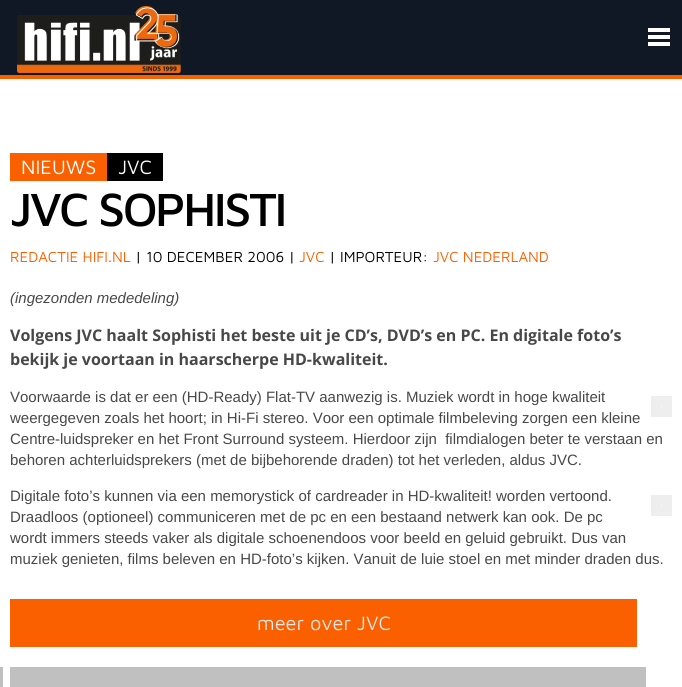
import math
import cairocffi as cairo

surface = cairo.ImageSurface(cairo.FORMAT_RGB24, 682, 687)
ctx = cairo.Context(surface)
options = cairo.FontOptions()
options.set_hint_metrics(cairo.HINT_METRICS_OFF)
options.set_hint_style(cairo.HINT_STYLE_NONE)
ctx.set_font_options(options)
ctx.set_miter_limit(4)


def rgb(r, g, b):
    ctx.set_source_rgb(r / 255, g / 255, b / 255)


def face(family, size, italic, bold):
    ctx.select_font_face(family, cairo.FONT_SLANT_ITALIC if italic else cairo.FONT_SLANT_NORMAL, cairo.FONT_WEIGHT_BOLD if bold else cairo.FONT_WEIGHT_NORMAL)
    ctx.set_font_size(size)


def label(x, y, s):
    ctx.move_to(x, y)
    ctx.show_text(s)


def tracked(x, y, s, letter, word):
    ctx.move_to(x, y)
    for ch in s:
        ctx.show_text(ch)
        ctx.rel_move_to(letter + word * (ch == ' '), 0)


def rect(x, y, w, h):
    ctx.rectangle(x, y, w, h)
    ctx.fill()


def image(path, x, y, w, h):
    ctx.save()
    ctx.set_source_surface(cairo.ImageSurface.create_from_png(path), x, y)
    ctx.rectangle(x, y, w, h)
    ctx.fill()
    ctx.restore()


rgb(255, 255, 255)
ctx.paint()
rgb(16, 24, 37)
rect(0, 0, 682, 75)
rgb(250, 96, 0)
rect(0, 75, 682, 4)
image('image0.png', 17, 6, 164, 67)
image('image1.png', 648, 28, 22, 18)
rgb(0, 0, 0)
rect(107, 153, 56, 28)
rgb(250, 96, 0)
rect(10, 153, 97, 28)
face('Maven Pro', 20, 0, 0)
rgb(255, 255, 255)
label(21, 174, 'NIEUWS')
label(118, 174, 'JVC')
face('Maven Pro Medium', 48, 0, 0)
rgb(0, 0, 0)
tracked(10, 226, 'JVC SOPHISTI', -2.4, 0)
face('Maven Pro', 15, 0, 0)
rgb(250, 96, 0)
label(10, 262, 'REDACTIE HIFI.NL')
rgb(0, 0, 0)
label(135, 262, '| 10 DECEMBER 2006 |')
rgb(250, 96, 0)
label(299, 262, 'JVC')
rgb(0, 0, 0)
label(329, 262, '| IMPORTEUR:')
rgb(250, 96, 0)
label(433, 262, 'JVC NEDERLAND')
face('Liberation Sans', 15, 1, 0)
rgb(72, 72, 72)
label(10, 303, '(ingezonden mededeling)')
face('Open Sans', 16, 0, 1)
label(10, 341, 'Volgens JVC haalt Sophisti het beste uit je CD’s, DVD’s en PC. En digitale foto’s')
label(10, 365, 'bekijk je voortaan in haarscherpe HD-kwaliteit.')
face('Liberation Sans', 15, 0, 0)
label(10, 402, 'Voorwaarde is dat er een (HD-Ready) Flat-TV aanwezig is. Muziek wordt in hoge kwaliteit')
label(10, 423, 'weergegeven zoals het hoort; in Hi-Fi stereo. Voor een optimale filmbeleving zorgen een kleine')
label(10, 444, 'Centre-luidspreker en het Front Surround systeem. Hierdoor zijn  filmdialogen beter te verstaan en')
label(10, 465, 'behoren achterluidsprekers (met de bijbehorende draden) tot het verleden, aldus JVC.')
ctx.rectangle(656, 401, 11, 11)
rgb(238, 238, 238)
ctx.set_line_width(10)
ctx.stroke()
rgb(72, 72, 72)
label(10, 501, 'Digitale foto’s kunnen via een memorystick of cardreader in HD-kwaliteit! worden vertoond.')
label(10, 522, 'Draadloos (optioneel) communiceren met de pc en een bestaand netwerk kan ook. De pc')
label(10, 543, 'wordt immers steeds vaker als digitale schoenendoos voor beeld en geluid gebruikt. Dus van')
label(10, 564, 'muziek genieten, films beleven en HD-foto’s kijken. Vanuit de luie stoel en met minder draden dus.')
ctx.rectangle(656, 500, 11, 11)
rgb(238, 238, 238)
ctx.stroke()
rgb(250, 96, 0)
rect(10, 599, 627, 48)
face('Maven Pro', 20, 0, 0)
rgb(231, 231, 231)
label(257, 630, 'meer over JVC')
rgb(192, 192, 192)
rect(0, 667, 3, 20)
rect(10, 667, 636, 20)
surface.write_to_png('render.png')
